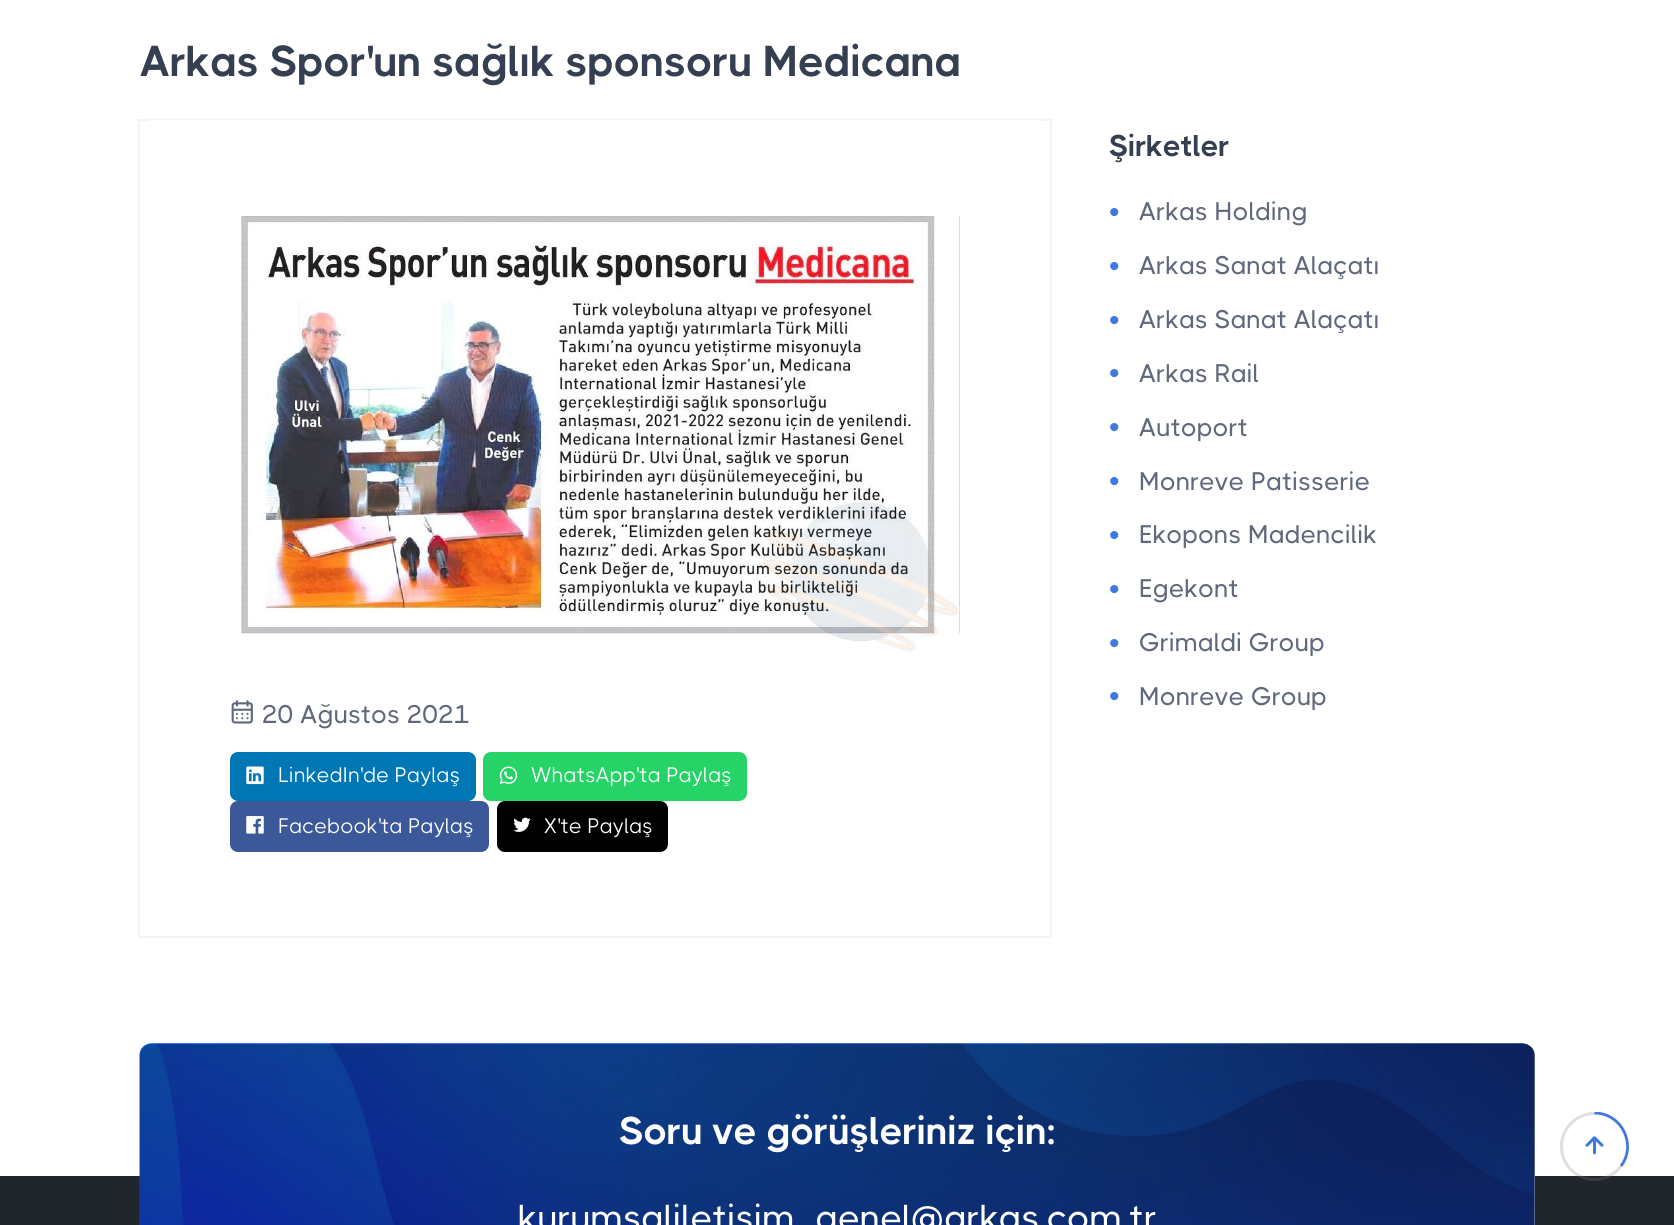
import math
import cairocffi as cairo

surface = cairo.ImageSurface(cairo.FORMAT_RGB24, 1674, 1225)
ctx = cairo.Context(surface)
options = cairo.FontOptions()
options.set_hint_metrics(cairo.HINT_METRICS_OFF)
options.set_hint_style(cairo.HINT_STYLE_NONE)
ctx.set_font_options(options)
ctx.set_miter_limit(4)


def rgb(r, g, b):
    ctx.set_source_rgb(r / 255, g / 255, b / 255)


def face(family, size, italic, bold):
    ctx.select_font_face(family, cairo.FONT_SLANT_ITALIC if italic else cairo.FONT_SLANT_NORMAL, cairo.FONT_WEIGHT_BOLD if bold else cairo.FONT_WEIGHT_NORMAL)
    ctx.set_font_size(size)


def label(x, y, s):
    ctx.move_to(x, y)
    ctx.show_text(s)


def tracked(x, y, s, letter, word):
    ctx.move_to(x, y)
    for ch in s:
        ctx.show_text(ch)
        ctx.rel_move_to(letter + word * (ch == ' '), 0)


def rect(x, y, w, h):
    ctx.rectangle(x, y, w, h)
    ctx.fill()


def rrect(x, y, w, h, r):
    ctx.new_sub_path()
    for i, (u, v) in enumerate([(x + w - r, y + h - r), (x + r, y + h - r), (x + r, y + r), (x + w - r, y + r)]):
        ctx.arc(u, v, r, i * math.pi / 2, (i + 1) * math.pi / 2)
    ctx.close_path()


def image(path, x, y, w, h):
    ctx.save()
    ctx.set_source_surface(cairo.ImageSurface.create_from_png(path), x, y)
    ctx.rectangle(x, y, w, h)
    ctx.fill()
    ctx.restore()


rgb(255, 255, 255)
ctx.paint()
face('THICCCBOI', 43.25, 0, 1)
rgb(52, 63, 82)
tracked(140, 76, 'Arkas Spor\'un sağlık sponsoru Medicana', -0.3, 0)
ctx.rectangle(139, 120, 912, 817)
ctx.set_source_rgba(0.031, 0.235, 0.51, 0.06)
ctx.stroke()
rgb(255, 255, 255)
rrect(140, 120, 910, 816, 12)
ctx.fill()
image('image0.png', 240, 215, 720, 437)
image('image1.png', 231, 700, 22, 24)
face('THICCCBOI Medium', 25.5, 0, 0)
rgb(96, 105, 123)
label(262, 723, '20 Ağustos 2021')
rgb(0, 119, 181)
rrect(230, 752, 246, 49, 8)
ctx.fill()
image('image2.png', 246, 766, 18, 19)
face('THICCCBOI', 21, 0, 0)
rgb(255, 255, 255)
label(278, 782, 'LinkedIn\'de Paylaş')
rgb(37, 211, 102)
rrect(483, 752, 264, 49, 8)
ctx.fill()
image('image3.png', 499, 766, 19, 18)
rgb(255, 255, 255)
label(531, 782, 'WhatsApp\'ta Paylaş')
rgb(59, 89, 152)
rrect(230, 801, 259, 51, 8)
ctx.fill()
image('image4.png', 246, 816, 18, 18)
rgb(255, 255, 255)
label(278, 833, 'Facebook\'ta Paylaş')
rgb(0, 0, 0)
rrect(497, 801, 171, 51, 8)
ctx.fill()
image('image5.png', 513, 817, 18, 15)
rgb(255, 255, 255)
label(544, 833, 'X\'te Paylaş')
face('THICCCBOI', 30, 0, 1)
rgb(52, 63, 82)
tracked(1109, 156, 'Şirketler', -0.3, 0)
face('Liberation Sans', 30, 0, 0)
rgb(63, 120, 224)
label(1109, 222, '•')
face('THICCCBOI Medium', 25.5, 0, 0)
rgb(96, 105, 123)
label(1139, 220, 'Arkas Holding')
face('Liberation Sans', 30, 0, 0)
rgb(63, 120, 224)
label(1109, 276, '•')
face('THICCCBOI Medium', 25.5, 0, 0)
rgb(96, 105, 123)
label(1139, 274, 'Arkas Sanat Alaçatı')
face('Liberation Sans', 30, 0, 0)
rgb(63, 120, 224)
label(1109, 330, '•')
face('THICCCBOI Medium', 25.5, 0, 0)
rgb(96, 105, 123)
label(1139, 328, 'Arkas Sanat Alaçatı')
face('Liberation Sans', 30, 0, 0)
rgb(63, 120, 224)
label(1109, 383, '•')
face('THICCCBOI Medium', 25.5, 0, 0)
rgb(96, 105, 123)
label(1139, 382, 'Arkas Rail')
face('Liberation Sans', 30, 0, 0)
rgb(63, 120, 224)
label(1109, 437, '•')
face('THICCCBOI Medium', 25.5, 0, 0)
rgb(96, 105, 123)
label(1139, 436, 'Autoport')
face('Liberation Sans', 30, 0, 0)
rgb(63, 120, 224)
label(1109, 491, '•')
face('THICCCBOI Medium', 25.5, 0, 0)
rgb(96, 105, 123)
label(1139, 490, 'Monreve Patisserie')
face('Liberation Sans', 30, 0, 0)
rgb(63, 120, 224)
label(1109, 545, '•')
face('THICCCBOI Medium', 25.5, 0, 0)
rgb(96, 105, 123)
label(1139, 543, 'Ekopons Madencilik')
face('Liberation Sans', 30, 0, 0)
rgb(63, 120, 224)
label(1109, 599, '•')
face('THICCCBOI Medium', 25.5, 0, 0)
rgb(96, 105, 123)
label(1139, 597, 'Egekont')
face('Liberation Sans', 30, 0, 0)
rgb(63, 120, 224)
label(1109, 653, '•')
face('THICCCBOI Medium', 25.5, 0, 0)
rgb(96, 105, 123)
label(1139, 651, 'Grimaldi Group')
face('Liberation Sans', 30, 0, 0)
rgb(63, 120, 224)
label(1109, 706, '•')
face('THICCCBOI Medium', 25.5, 0, 0)
rgb(96, 105, 123)
label(1139, 705, 'Monreve Group')
rgb(33, 38, 44)
rect(0, 1176, 1674, 49)
rgb(255, 255, 255)
rrect(140, 1044, 1395, 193, 12)
ctx.fill()
image('image6.png', 139, 1043, 1396, 182)
ctx.set_source_rgba(0.118, 0.133, 0.157, 0.4)
rrect(140, 1044, 1395, 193, 12)
ctx.fill()
face('THICCCBOI', 38.6, 0, 1)
rgb(255, 255, 255)
tracked(619, 1144, 'Soru ve görüşleriniz için:', -0.3, 0)
face('THICCCBOI Medium', 36, 0, 0)
label(518, 1230, 'kurumsaliletisim_genel@arkas.com.tr')
ctx.new_path()
ctx.arc(1594.5, 1146.5, 33, 0, 2 * math.pi)
ctx.set_source_rgba(0.502, 0.51, 0.525, 0.25)
ctx.set_line_width(3)
ctx.stroke()
ctx.save()
ctx.rectangle(1560, 1112, 69, 69)
ctx.clip()
ctx.new_path()
ctx.move_to(1594.5, 1113)
ctx.curve_to(1622, 1113, 1637, 1145, 1621, 1166)
rgb(63, 120, 224)
ctx.set_line_width(2.7)
ctx.stroke()
ctx.restore()
image('image7.png', 1585, 1136, 19, 19)
surface.write_to_png('render.png')
